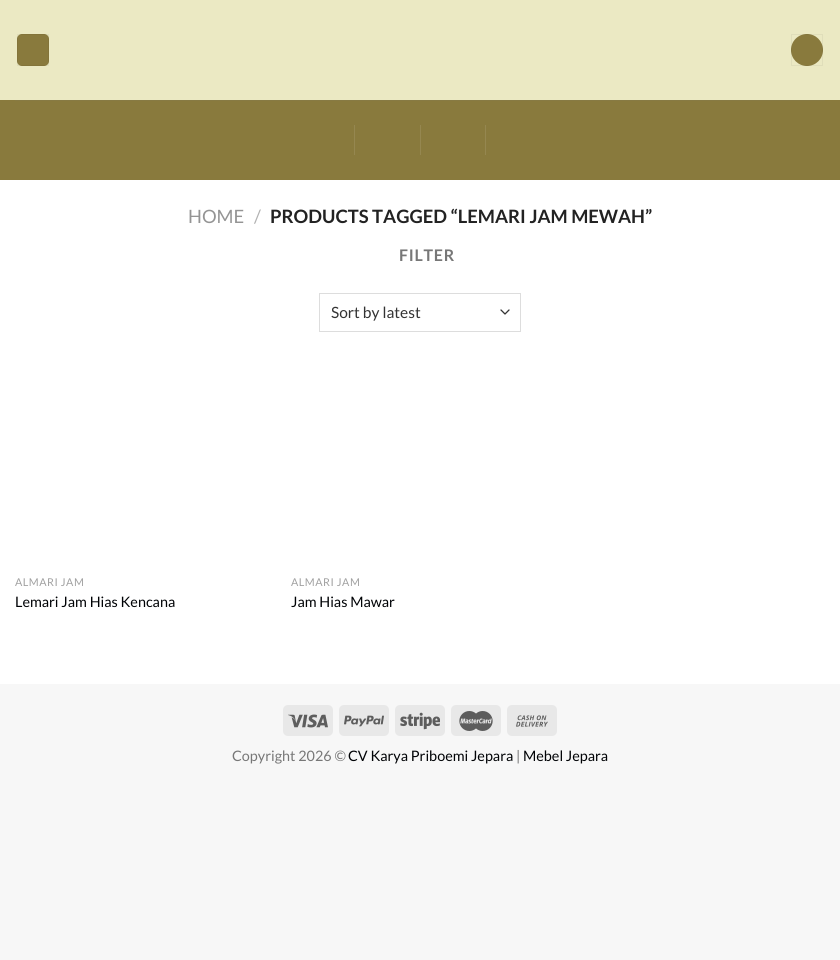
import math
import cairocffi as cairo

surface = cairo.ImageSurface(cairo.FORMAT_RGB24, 840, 960)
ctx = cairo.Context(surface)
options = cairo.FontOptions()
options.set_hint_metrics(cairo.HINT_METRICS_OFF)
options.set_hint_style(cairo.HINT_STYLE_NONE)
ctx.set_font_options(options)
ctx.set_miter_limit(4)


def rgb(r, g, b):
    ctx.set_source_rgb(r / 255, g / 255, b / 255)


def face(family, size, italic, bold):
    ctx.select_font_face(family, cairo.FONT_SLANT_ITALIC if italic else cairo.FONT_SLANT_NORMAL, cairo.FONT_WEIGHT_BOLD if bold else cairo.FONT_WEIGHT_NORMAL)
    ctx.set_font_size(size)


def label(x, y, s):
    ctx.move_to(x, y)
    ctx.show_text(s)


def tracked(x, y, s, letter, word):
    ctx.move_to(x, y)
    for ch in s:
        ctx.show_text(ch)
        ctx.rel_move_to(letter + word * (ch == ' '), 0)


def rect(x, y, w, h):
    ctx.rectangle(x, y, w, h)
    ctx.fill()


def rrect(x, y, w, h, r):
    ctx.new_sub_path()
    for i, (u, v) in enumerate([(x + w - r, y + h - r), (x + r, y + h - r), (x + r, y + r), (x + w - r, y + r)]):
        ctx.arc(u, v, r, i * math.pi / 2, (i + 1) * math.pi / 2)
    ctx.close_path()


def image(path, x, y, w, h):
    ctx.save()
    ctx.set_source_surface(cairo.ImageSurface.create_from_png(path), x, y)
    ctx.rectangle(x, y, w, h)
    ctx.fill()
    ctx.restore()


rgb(247, 247, 247)
ctx.paint()
rgb(255, 255, 255)
rect(0, 180, 840, 504)
rgb(235, 233, 195)
rect(0, 0, 840, 100)
rgb(137, 122, 61)
rrect(17, 34, 32, 32, 5)
ctx.fill()
ctx.rectangle(17.5, 34.5, 31, 31)
ctx.set_source_rgba(0, 0, 0, 0.05)
ctx.set_line_width(1)
ctx.stroke()
rgb(137, 122, 61)
ctx.arc(807, 50, 16, 0, 2 * math.pi)
ctx.fill()
ctx.rectangle(791.5, 34.5, 31, 31)
ctx.set_source_rgba(0, 0, 0, 0.05)
ctx.stroke()
rgb(137, 122, 61)
rect(0, 100, 840, 80)
rgb(135, 122, 67)
rect(15, 100, 810, 1)
rgb(149, 135, 80)
rect(354, 125, 1, 30)
rect(420, 125, 1, 30)
rect(485, 125, 1, 30)
face('Lato', 18.4, 0, 0)
rgb(148, 148, 148)
label(188, 223, 'HOME')
rgb(178, 178, 178)
label(254, 223, '/')
face('Lato', 18.4, 0, 1)
rgb(34, 34, 34)
label(270, 223, 'PRODUCTS TAGGED “LEMARI JAM MEWAH”')
face('Lato', 16, 0, 1)
rgb(119, 119, 119)
tracked(399, 261, 'FILTER', 0.75, 0)
ctx.new_path()
ctx.move_to(501, 310)
ctx.line_to(505, 314)
ctx.line_to(509, 310)
rgb(51, 51, 51)
ctx.set_line_width(1.3)
ctx.set_line_cap(cairo.LINE_CAP_ROUND)
ctx.set_line_join(cairo.LINE_JOIN_ROUND)
ctx.stroke()
ctx.rectangle(319.5, 293.5, 201, 38)
rgb(221, 221, 221)
ctx.set_line_width(1)
ctx.set_line_cap(cairo.LINE_CAP_BUTT)
ctx.set_line_join(cairo.LINE_JOIN_MITER)
ctx.stroke()
face('Lato', 15.5, 0, 0)
rgb(51, 51, 51)
label(331, 318, 'Sort by latest')
face('Lato', 10.75, 0, 0)
rgb(160, 160, 160)
tracked(15, 586, 'ALMARI JAM', 0.5, 0)
face('Lato', 14.4, 0, 0)
rgb(0, 2, 5)
label(15, 607, 'Lemari Jam Hias Kencana')
face('Lato', 10.75, 0, 0)
rgb(160, 160, 160)
tracked(291, 586, 'ALMARI JAM', 0.5, 0)
face('Lato', 14.4, 0, 0)
rgb(0, 2, 5)
label(291, 607, 'Jam Hias Mawar')
rgb(232, 232, 232)
rrect(283, 705, 50, 31, 5)
ctx.fill()
image('image0.png', 288, 714, 40, 14)
rrect(339, 705, 50, 31, 5)
ctx.fill()
image('image1.png', 344, 715, 40, 12)
rrect(395, 705, 50, 31, 5)
ctx.fill()
image('image2.png', 400, 712, 40, 18)
rrect(451, 705, 50, 31, 5)
ctx.fill()
image('image3.png', 459, 711, 34, 20)
rrect(507, 705, 50, 31, 5)
ctx.fill()
image('image4.png', 516, 715, 32, 12)
rgb(119, 119, 119)
label(232, 761, 'Copyright 2026 ©')
rgb(0, 2, 5)
label(348, 761, 'CV Karya Priboemi Jepara')
rgb(119, 119, 119)
label(516, 761, '|')
rgb(0, 2, 5)
label(523, 761, 'Mebel Jepara')
surface.write_to_png('render.png')
